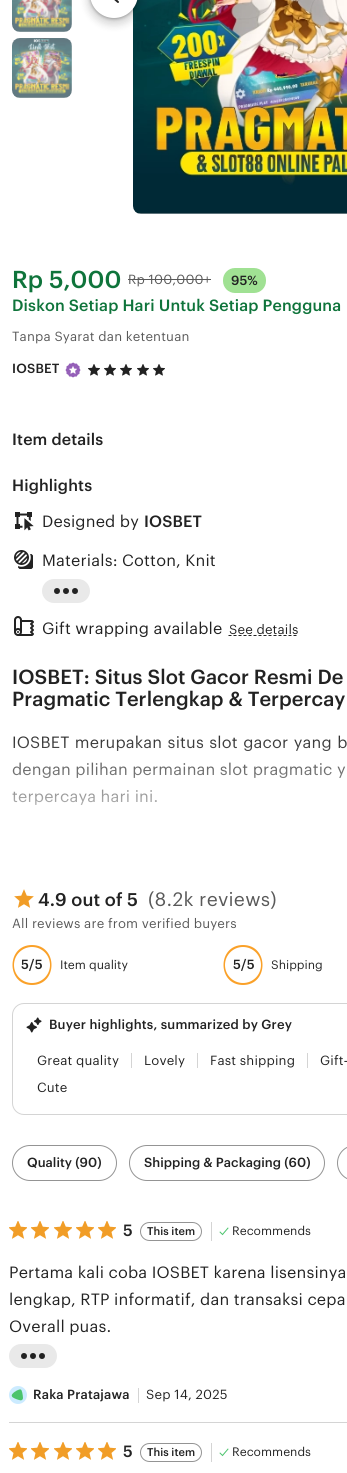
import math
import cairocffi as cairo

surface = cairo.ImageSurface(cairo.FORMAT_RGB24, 347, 1473)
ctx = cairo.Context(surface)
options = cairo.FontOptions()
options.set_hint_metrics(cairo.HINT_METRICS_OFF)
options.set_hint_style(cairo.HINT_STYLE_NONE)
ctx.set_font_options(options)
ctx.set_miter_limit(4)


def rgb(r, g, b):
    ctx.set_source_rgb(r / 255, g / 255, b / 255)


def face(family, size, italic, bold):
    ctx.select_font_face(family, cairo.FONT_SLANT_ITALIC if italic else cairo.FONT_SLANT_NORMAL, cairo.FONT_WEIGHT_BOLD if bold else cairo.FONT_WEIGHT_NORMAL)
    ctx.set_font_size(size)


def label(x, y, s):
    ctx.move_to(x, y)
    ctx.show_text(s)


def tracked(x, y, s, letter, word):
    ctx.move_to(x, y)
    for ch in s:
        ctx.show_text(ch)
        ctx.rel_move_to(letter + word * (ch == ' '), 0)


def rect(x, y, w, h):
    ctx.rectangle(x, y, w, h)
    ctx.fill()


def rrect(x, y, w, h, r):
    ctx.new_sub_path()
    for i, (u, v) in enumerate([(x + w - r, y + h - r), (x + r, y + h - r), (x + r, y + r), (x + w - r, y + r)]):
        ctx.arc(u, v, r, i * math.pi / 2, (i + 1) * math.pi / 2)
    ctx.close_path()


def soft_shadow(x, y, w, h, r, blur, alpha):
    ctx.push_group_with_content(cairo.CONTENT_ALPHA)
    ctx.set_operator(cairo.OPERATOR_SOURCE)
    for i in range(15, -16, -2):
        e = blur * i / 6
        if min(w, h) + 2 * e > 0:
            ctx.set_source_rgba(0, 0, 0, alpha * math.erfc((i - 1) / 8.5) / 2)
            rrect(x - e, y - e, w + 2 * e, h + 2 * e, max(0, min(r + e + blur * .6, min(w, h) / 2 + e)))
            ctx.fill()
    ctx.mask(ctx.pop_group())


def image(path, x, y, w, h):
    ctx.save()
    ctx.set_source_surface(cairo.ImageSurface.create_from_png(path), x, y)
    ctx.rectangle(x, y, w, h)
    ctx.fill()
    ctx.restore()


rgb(255, 255, 255)
ctx.paint()
rgb(242, 242, 242)
rrect(12, -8, 60, 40, 8)
ctx.fill()
image('image0.png', 12, 0, 60, 32)
rrect(12, 38, 60, 60, 8)
ctx.fill()
image('image1.png', 12, 38, 60, 60)
image('image3.png', 133, 0, 214, 214)
rgb(0, 0, 0)
soft_shadow(87, -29, 54, 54, 27, 4, 0.15)
soft_shadow(90, -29, 48, 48, 24, 1.5, 0.3)
rgb(255, 255, 255)
rrect(90, -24, 48, 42, 24)
ctx.fill()
image('image2.png', 114, 0, 5, 3)
face('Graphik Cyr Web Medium', 24, 0, 0)
rgb(15, 116, 59)
label(12, 288, 'Rp 5,000')
face('Graphik Cyr Web', 13, 0, 0)
rgb(89, 89, 89)
tracked(128, 284, 'Rp 100,000+', 0.15, 0)
rect(128, 279, 83, 1)
rgb(160, 225, 147)
rrect(223, 268, 43, 25, 12)
ctx.fill()
face('Graphik Cyr Web Medium', 13, 0, 0)
rgb(34, 34, 34)
label(231, 285, '95%')
face('Graphik Cyr Web Medium', 16, 0, 0)
rgb(15, 116, 59)
tracked(12, 311, 'Diskon Setiap Hari Untuk Setiap Pengguna', 0.1, 0)
face('Graphik Cyr Web', 13, 0, 0)
rgb(89, 89, 89)
tracked(12, 341, 'Tanpa Syarat dan ketentuan', 0.15, 0)
face('Graphik Cyr Web Medium', 13, 0, 0)
rgb(34, 34, 34)
tracked(12, 373, 'IOSBET', 0.15, 0)
image('image4.png', 65, 362, 16, 16)
image('image5.png', 88, 364, 12, 12)
image('image5.png', 104, 364, 12, 12)
image('image5.png', 120, 364, 12, 12)
image('image5.png', 137, 364, 12, 12)
image('image5.png', 153, 364, 12, 12)
face('Graphik Cyr Web Medium', 16, 0, 0)
tracked(12, 445, 'Item details', 0.1, 0)
tracked(12, 491, 'Highlights', 0.1, 0)
image('image6.png', 15, 512, 19, 19)
face('Graphik Cyr Web', 16, 0, 0)
tracked(42, 527, 'Designed by', 0.15, 0)
face('Graphik Cyr Web Medium', 16, 0, 0)
tracked(144, 527, 'IOSBET', 0.1, 0)
image('image7.png', 14, 550, 19, 19)
face('Graphik Cyr Web', 16, 0, 0)
tracked(42, 566, 'Materials: Cotton, Knit', 0.15, 0)
rgb(233, 233, 233)
rrect(42, 579, 48, 24, 12)
ctx.fill()
rgb(34, 34, 34)
ctx.arc(66, 591, 3, 0, 2 * math.pi)
ctx.fill()
ctx.arc(57, 591, 3, 0, 2 * math.pi)
ctx.fill()
ctx.arc(75, 591, 3, 0, 2 * math.pi)
ctx.fill()
image('image8.png', 14, 616, 20, 20)
tracked(42, 634, 'Gift wrapping available', 0.15, 0)
face('Graphik Cyr Web', 13, 0, 0)
tracked(229, 634, 'See details', 0.15, 0)
ctx.new_path()
ctx.move_to(228.5, 635.5)
ctx.line_to(298, 635.5)
ctx.set_line_width(1)
ctx.set_dash([3, 2])
ctx.stroke()
face('Graphik Cyr Web Medium', 20, 0, 0)
label(12, 684, 'IOSBET: Situs Slot Gacor Resmi De')
label(12, 706, 'Pragmatic Terlengkap & Terpercay')
face('Graphik Cyr Web', 16, 0, 0)
tracked(12, 748, 'IOSBET merupakan situs slot gacor yang b', 0.15, 1)
tracked(12, 775, 'dengan pilihan permainan slot pragmatic y', 0.15, 0)
tracked(12, 802, 'terpercaya hari ini.', 0.15, 0)
gradient = cairo.LinearGradient(320, 729, 320, 849)
gradient.add_color_stop_rgba(0, 1, 1, 1, 0)
gradient.add_color_stop_rgba(1, 1, 1, 1, 1)
ctx.set_source(gradient)
rect(12, 735, 335, 70)
image('image9.png', 14, 889, 20, 19)
face('Graphik Cyr Web Medium', 18, 0, 0)
rgb(34, 34, 34)
tracked(38, 906, '4.9 out of 5', 0.1, 0)
face('Graphik Cyr Web', 19, 0, 0)
rgb(89, 89, 89)
tracked(148, 906, '(8.2k reviews)', 0.25, 0)
face('Graphik Cyr Web', 13, 0, 0)
tracked(12, 928, 'All reviews are from verified buyers', 0.15, 0)
rgb(250, 161, 41)
ctx.new_path()
ctx.move_to(32, 965)
ctx.line_to(32, 945)
ctx.curve_to(58, 945, 58, 985, 32, 985)
ctx.curve_to(6, 985, 6, 945, 32, 945)
ctx.close_path()
ctx.fill()
rgb(255, 255, 255)
ctx.arc(32, 965, 18, 0, 2 * math.pi)
ctx.fill()
face('Graphik Cyr Web Medium', 13, 0, 0)
rgb(34, 34, 34)
tracked(21, 969, '5/5', 0.15, 0)
face('Graphik Cyr Web', 12, 0, 0)
label(60, 969, 'Item quality')
rgb(250, 161, 41)
ctx.new_path()
ctx.move_to(243, 965)
ctx.line_to(243, 945)
ctx.curve_to(269, 945, 269, 985, 243, 985)
ctx.curve_to(217, 985, 217, 945, 243, 945)
ctx.close_path()
ctx.fill()
rgb(255, 255, 255)
ctx.arc(243, 965, 18, 0, 2 * math.pi)
ctx.fill()
face('Graphik Cyr Web Medium', 13, 0, 0)
rgb(34, 34, 34)
tracked(233, 969, '5/5', 0.15, 0)
face('Graphik Cyr Web', 12, 0, 0)
label(271, 969, 'Shipping')
rrect(12.5, 1003.5, 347, 111, 11.5)
rgb(212, 212, 212)
ctx.set_dash([])
ctx.stroke()
image('image10.png', 26, 1017, 16, 16)
face('Graphik Cyr Web Medium', 13, 0, 0)
rgb(34, 34, 34)
tracked(49, 1029, 'Buyer highlights, summarized by Grey', 0.15, 0)
rgb(212, 212, 212)
rect(131, 1053, 1, 15)
face('Graphik Cyr Web', 13, 0, 0)
rgb(34, 34, 34)
tracked(37, 1065, 'Great quality', 0.15, 0)
rgb(212, 212, 212)
rect(197, 1053, 1, 15)
rgb(34, 34, 34)
tracked(144, 1065, 'Lovely', 0.15, 0)
rgb(212, 212, 212)
rect(307, 1053, 1, 15)
rgb(34, 34, 34)
tracked(210, 1065, 'Fast shipping', 0.15, 0)
tracked(320, 1065, 'Gift-', 0.15, 0)
tracked(37, 1092, 'Cute', 0.15, 0)
rrect(12.5, 1145.5, 104, 35, 17.5)
rgb(148, 148, 148)
ctx.stroke()
face('Graphik Cyr Web Medium', 13, 0, 0)
rgb(34, 34, 34)
label(27, 1167, 'Quality (90)')
rrect(129.5, 1145.5, 195, 35, 17.5)
rgb(148, 148, 148)
ctx.stroke()
rgb(34, 34, 34)
label(144, 1167, 'Shipping & Packaging (60)')
rrect(337.5, 1145.5, 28, 35, 17.5)
rgb(148, 148, 148)
ctx.stroke()
rgb(212, 212, 212)
rect(9, 1422, 338, 1)
image('image11.png', 9, 1221, 18, 18)
image('image11.png', 31, 1221, 18, 18)
image('image11.png', 54, 1221, 18, 18)
image('image11.png', 76, 1221, 18, 18)
image('image11.png', 98, 1221, 18, 18)
face('Graphik Cyr Web Medium', 16, 0, 0)
rgb(34, 34, 34)
tracked(123, 1236, '5', 0.1, 0)
rrect(140.5, 1222.5, 61, 18, 9)
rgb(148, 148, 148)
ctx.stroke()
face('Graphik Cyr Web Medium', 11, 0, 0)
rgb(34, 34, 34)
label(147, 1235, 'This item')
rgb(212, 212, 212)
rect(211, 1222, 1, 19)
image('image12.png', 219, 1227, 10, 9)
face('Graphik Cyr Web', 12, 0, 0)
rgb(34, 34, 34)
label(232, 1235, 'Recommends')
face('Graphik Cyr Web', 16, 0, 0)
tracked(9, 1278, 'Pertama kali coba IOSBET karena lisensinya', 0.15, 0)
tracked(9, 1305, 'lengkap, RTP informatif, dan transaksi cepa', 0.15, 0)
tracked(9, 1332, 'Overall puas.', 0.15, 0)
rgb(233, 233, 233)
rrect(9, 1344, 48, 24, 12)
ctx.fill()
rgb(34, 34, 34)
ctx.arc(33, 1356, 3, 0, 2 * math.pi)
ctx.fill()
ctx.arc(24, 1356, 3, 0, 2 * math.pi)
ctx.fill()
ctx.arc(42, 1356, 3, 0, 2 * math.pi)
ctx.fill()
image('image13.png', 9, 1386, 18, 18)
face('Graphik Cyr Web Medium', 13, 0, 0)
tracked(33, 1399, 'Raka Pratajawa', 0.15, 0)
rgb(212, 212, 212)
rect(138, 1388, 1, 15)
face('Graphik Cyr Web', 13, 0, 0)
rgb(34, 34, 34)
tracked(146, 1399, 'Sep 14, 2025', 0.15, 0)
image('image11.png', 9, 1442, 18, 18)
image('image11.png', 31, 1442, 18, 18)
image('image11.png', 54, 1442, 18, 18)
image('image11.png', 76, 1442, 18, 18)
image('image11.png', 98, 1442, 18, 18)
face('Graphik Cyr Web Medium', 16, 0, 0)
tracked(123, 1457, '5', 0.1, 0)
rrect(140.5, 1443.5, 61, 18, 9)
rgb(148, 148, 148)
ctx.stroke()
face('Graphik Cyr Web Medium', 11, 0, 0)
rgb(34, 34, 34)
label(147, 1456, 'This item')
rgb(212, 212, 212)
rect(211, 1443, 1, 19)
image('image12.png', 219, 1448, 10, 9)
face('Graphik Cyr Web', 12, 0, 0)
rgb(34, 34, 34)
label(232, 1456, 'Recommends')
surface.write_to_png('render.png')
